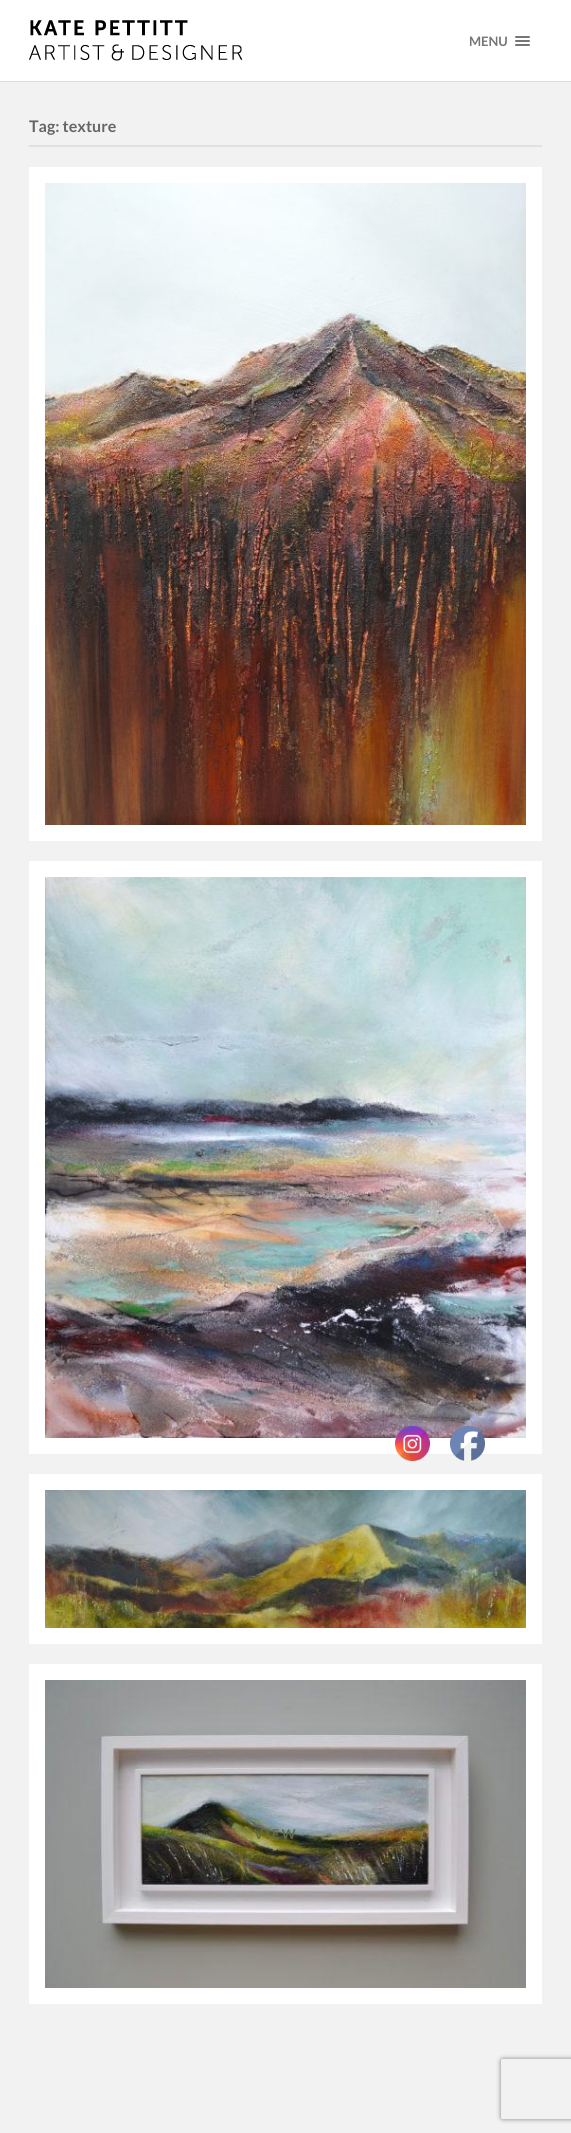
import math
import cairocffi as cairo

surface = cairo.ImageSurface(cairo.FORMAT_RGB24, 571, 2133)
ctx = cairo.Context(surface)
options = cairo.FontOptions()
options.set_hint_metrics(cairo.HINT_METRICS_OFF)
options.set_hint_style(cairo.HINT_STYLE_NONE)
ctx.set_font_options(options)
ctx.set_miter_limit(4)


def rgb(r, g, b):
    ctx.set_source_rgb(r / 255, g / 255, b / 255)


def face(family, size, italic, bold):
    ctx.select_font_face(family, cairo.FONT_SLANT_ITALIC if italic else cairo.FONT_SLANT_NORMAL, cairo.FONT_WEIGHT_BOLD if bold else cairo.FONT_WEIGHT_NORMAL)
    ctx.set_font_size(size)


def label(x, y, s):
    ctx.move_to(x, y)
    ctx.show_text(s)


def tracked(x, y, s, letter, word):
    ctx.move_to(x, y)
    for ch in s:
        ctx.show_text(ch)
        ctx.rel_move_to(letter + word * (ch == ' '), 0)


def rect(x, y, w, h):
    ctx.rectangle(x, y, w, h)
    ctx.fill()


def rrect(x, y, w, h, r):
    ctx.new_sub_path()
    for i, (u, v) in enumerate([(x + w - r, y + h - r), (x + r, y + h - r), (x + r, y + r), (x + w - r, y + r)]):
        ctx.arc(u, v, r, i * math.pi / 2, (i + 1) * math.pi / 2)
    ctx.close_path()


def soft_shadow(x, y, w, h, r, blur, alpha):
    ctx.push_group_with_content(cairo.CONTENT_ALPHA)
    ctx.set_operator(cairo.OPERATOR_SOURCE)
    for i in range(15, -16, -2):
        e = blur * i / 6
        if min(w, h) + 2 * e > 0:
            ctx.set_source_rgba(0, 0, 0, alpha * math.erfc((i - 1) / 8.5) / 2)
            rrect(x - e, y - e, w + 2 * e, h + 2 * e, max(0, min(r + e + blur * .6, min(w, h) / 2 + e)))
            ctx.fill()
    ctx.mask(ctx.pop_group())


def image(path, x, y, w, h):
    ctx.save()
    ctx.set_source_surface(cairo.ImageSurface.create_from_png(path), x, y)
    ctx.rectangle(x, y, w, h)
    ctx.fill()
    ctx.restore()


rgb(242, 242, 242)
ctx.paint()
rgb(255, 255, 255)
rect(0, 0, 571, 81)
rgb(221, 221, 221)
rect(0, 81, 571, 1)
image('image0.png', 29, 20, 214, 41)
face('Lato', 13, 0, 1)
rgb(118, 118, 118)
label(469, 46, 'MENU')
rrect(515, 36, 15, 2, 1)
ctx.fill()
rrect(515, 40, 15, 2, 1)
ctx.fill()
rrect(515, 44, 15, 2, 1)
ctx.fill()
rgb(225, 225, 225)
rect(29, 145, 513, 2)
face('Lato', 16, 0, 1)
rgb(102, 102, 102)
label(29, 132, 'Tag: texture')
rgb(255, 255, 255)
rect(29, 167, 513, 674)
image('image1.png', 45, 183, 481, 642)
rect(29, 861, 513, 593)
image('image2.png', 45, 877, 481, 561)
rect(29, 1474, 513, 170)
image('image3.png', 45, 1490, 481, 138)
rect(29, 1664, 513, 340)
image('image4.png', 45, 1680, 481, 308)
face('Lato', 13.5, 0, 1)
rgb(99, 107, 70)
tracked(254, 1839, 'VIEW', 2, 0)
image('image5.png', 395, 1426, 35, 35)
image('image6.png', 450, 1426, 35, 35)
ctx.save()
ctx.set_fill_rule(cairo.FILL_RULE_EVEN_ODD)
ctx.new_path()
ctx.move_to(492, 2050)
ctx.line_to(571, 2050)
ctx.line_to(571, 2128)
ctx.line_to(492, 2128)
ctx.close_path()
ctx.move_to(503, 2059)
ctx.line_to(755, 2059)
ctx.curve_to(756, 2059, 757, 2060, 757, 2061)
ctx.line_to(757, 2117)
ctx.curve_to(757, 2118, 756, 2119, 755, 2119)
ctx.line_to(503, 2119)
ctx.curve_to(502, 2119, 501, 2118, 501, 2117)
ctx.line_to(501, 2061)
ctx.curve_to(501, 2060, 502, 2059, 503, 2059)
ctx.close_path()
ctx.clip()
rgb(128, 128, 128)
soft_shadow(501, 2059, 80, 60, 2, 2.5, 1)
ctx.restore()
surface.write_to_png('render.png')
